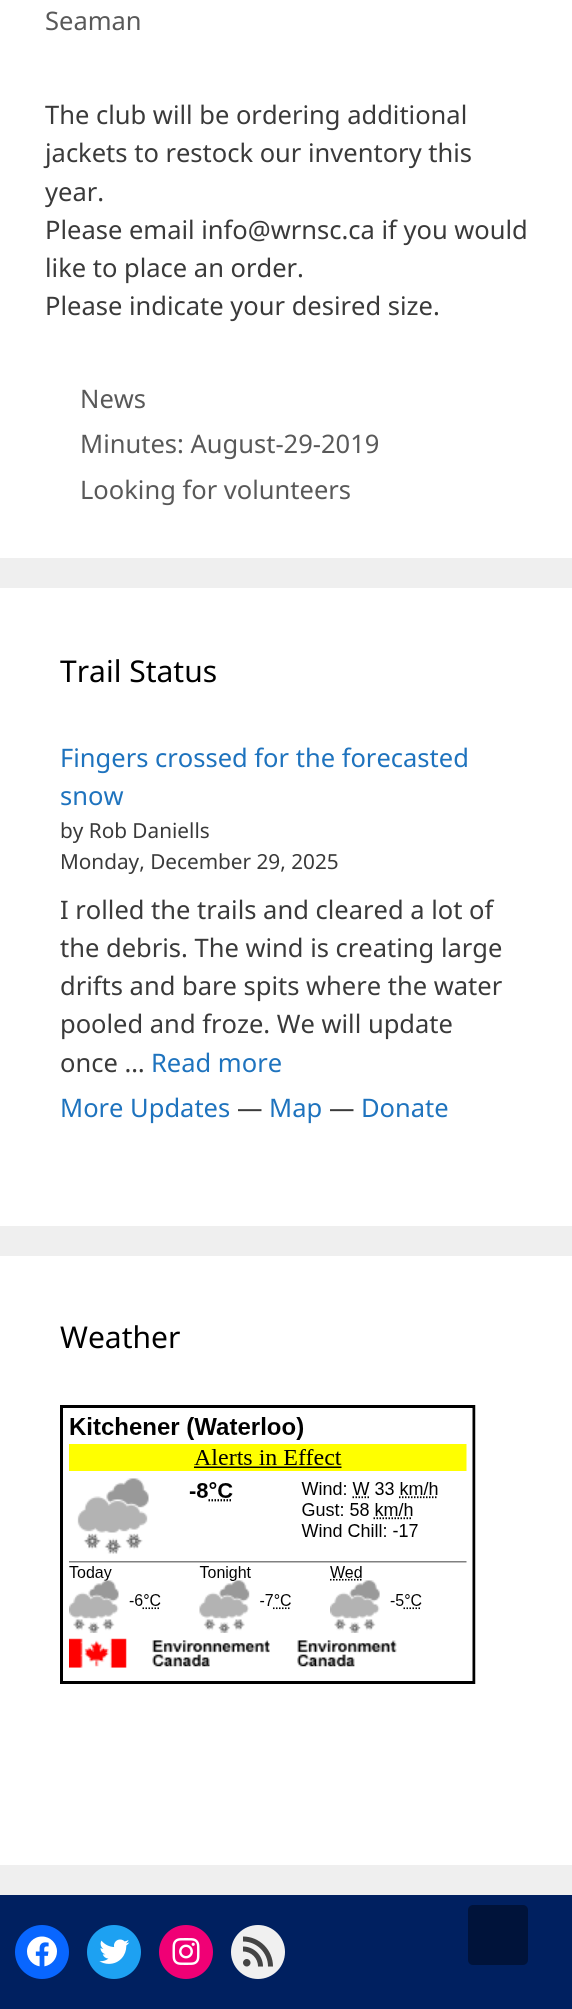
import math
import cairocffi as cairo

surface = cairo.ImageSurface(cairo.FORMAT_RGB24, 572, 2009)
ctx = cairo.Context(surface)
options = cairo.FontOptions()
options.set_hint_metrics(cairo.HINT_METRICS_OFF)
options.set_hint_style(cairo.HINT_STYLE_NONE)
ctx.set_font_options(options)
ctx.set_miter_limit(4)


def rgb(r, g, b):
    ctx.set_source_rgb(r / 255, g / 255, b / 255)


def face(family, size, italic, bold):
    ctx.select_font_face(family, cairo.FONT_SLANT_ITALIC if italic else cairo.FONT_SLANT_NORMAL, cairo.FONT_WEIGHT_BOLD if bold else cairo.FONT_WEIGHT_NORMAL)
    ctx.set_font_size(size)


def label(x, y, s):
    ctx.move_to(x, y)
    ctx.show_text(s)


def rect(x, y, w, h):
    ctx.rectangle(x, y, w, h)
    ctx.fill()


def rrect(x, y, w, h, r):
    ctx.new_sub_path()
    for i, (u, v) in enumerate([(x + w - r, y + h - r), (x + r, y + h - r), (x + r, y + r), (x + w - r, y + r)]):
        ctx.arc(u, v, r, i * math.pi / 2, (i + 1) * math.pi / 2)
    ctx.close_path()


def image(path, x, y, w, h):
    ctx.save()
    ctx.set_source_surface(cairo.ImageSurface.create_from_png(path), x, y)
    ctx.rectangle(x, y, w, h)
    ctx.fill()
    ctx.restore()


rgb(239, 239, 239)
ctx.paint()
rgb(255, 255, 255)
rect(0, 0, 572, 558)
face('Noto Sans', 25.5, 0, 0)
rgb(89, 89, 89)
label(45, 30, 'Seaman')
rgb(58, 58, 58)
label(45, 124, 'The club will be ordering additional')
label(45, 162, 'jackets to restock our inventory this')
label(45, 201, 'year.')
label(45, 239, 'Please email info@wrnsc.ca if you would')
label(45, 277, 'like to place an order.')
label(45, 315, 'Please indicate your desired size.')
rgb(89, 89, 89)
label(80, 408, 'News')
label(80, 453, 'Minutes: August-29-2019')
label(80, 499, 'Looking for volunteers')
rgb(255, 255, 255)
rect(0, 588, 572, 638)
face('Noto Sans', 30, 0, 0)
rgb(0, 0, 0)
label(60, 682, 'Trail Status')
face('Noto Sans', 25.5, 0, 0)
rgb(30, 115, 190)
label(60, 767, 'Fingers crossed for the forecasted')
label(60, 805, 'snow')
face('Noto Sans', 20.75, 0, 0)
rgb(58, 58, 58)
label(60, 838, 'by Rob Daniells')
label(60, 869, 'Monday, December 29, 2025')
face('Noto Sans', 25.5, 0, 0)
label(60, 919, 'I rolled the trails and cleared a lot of')
label(60, 957, 'the debris. The wind is creating large')
label(60, 995, 'drifts and bare spits where the water')
label(60, 1033, 'pooled and froze. We will update')
label(60, 1072, 'once …')
rgb(30, 115, 190)
label(151, 1072, 'Read more')
label(60, 1117, 'More Updates')
rgb(58, 58, 58)
label(237, 1117, '—')
rgb(30, 115, 190)
label(269, 1117, 'Map')
rgb(58, 58, 58)
label(329, 1117, '—')
rgb(30, 115, 190)
label(361, 1117, 'Donate')
rgb(255, 255, 255)
rect(0, 1256, 572, 609)
face('Noto Sans', 30, 0, 0)
rgb(0, 0, 0)
label(60, 1348, 'Weather')
image('image0.png', 60, 1405, 416, 279)
rgb(0, 32, 96)
rect(0, 1895, 572, 114)
rgb(8, 102, 255)
ctx.arc(42, 1952, 27, 0, 2 * math.pi)
ctx.fill()
image('image1.png', 27, 1936, 30, 31)
rgb(29, 161, 242)
ctx.arc(114, 1952, 27, 0, 2 * math.pi)
ctx.fill()
image('image2.png', 99, 1939, 31, 25)
rgb(240, 0, 117)
ctx.arc(186, 1952, 27, 0, 2 * math.pi)
ctx.fill()
image('image3.png', 172, 1938, 28, 27)
rgb(240, 240, 240)
ctx.arc(258, 1952, 27, 0, 2 * math.pi)
ctx.fill()
image('image4.png', 243, 1936, 30, 31)
rgb(0, 19, 58)
rrect(468, 1905, 60, 60, 5)
ctx.fill()
surface.write_to_png('render.png')
